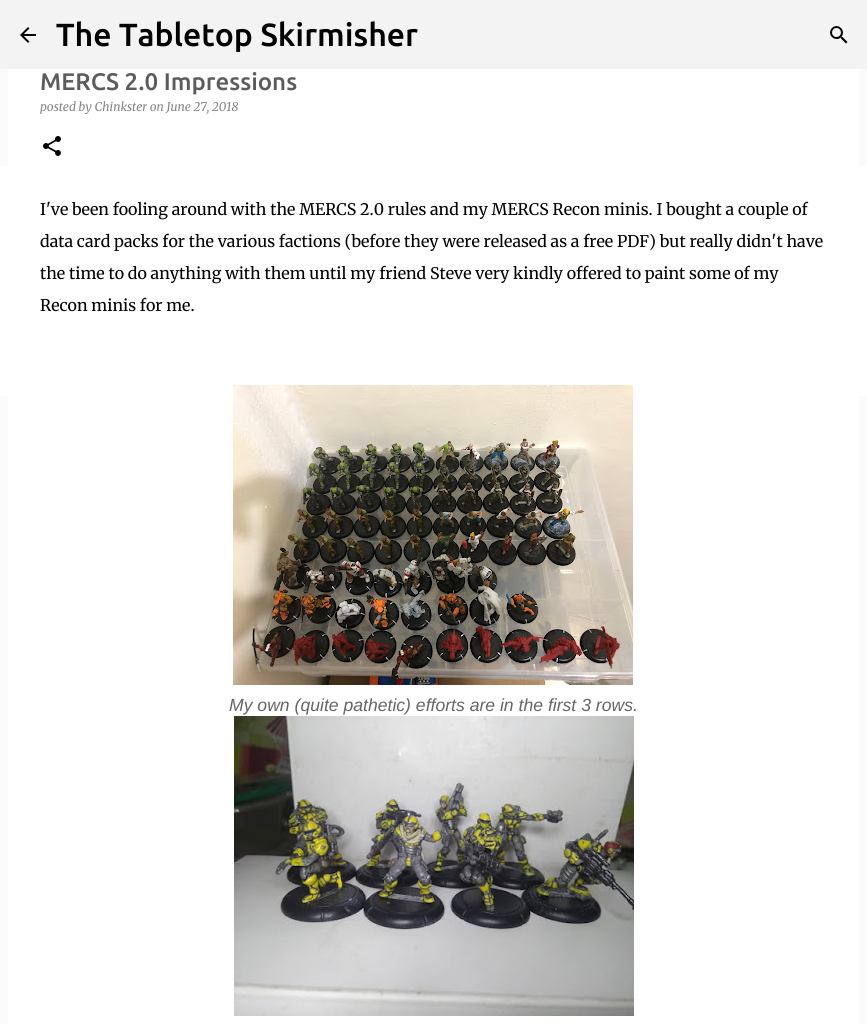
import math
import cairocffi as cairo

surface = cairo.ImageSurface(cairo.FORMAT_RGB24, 867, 1024)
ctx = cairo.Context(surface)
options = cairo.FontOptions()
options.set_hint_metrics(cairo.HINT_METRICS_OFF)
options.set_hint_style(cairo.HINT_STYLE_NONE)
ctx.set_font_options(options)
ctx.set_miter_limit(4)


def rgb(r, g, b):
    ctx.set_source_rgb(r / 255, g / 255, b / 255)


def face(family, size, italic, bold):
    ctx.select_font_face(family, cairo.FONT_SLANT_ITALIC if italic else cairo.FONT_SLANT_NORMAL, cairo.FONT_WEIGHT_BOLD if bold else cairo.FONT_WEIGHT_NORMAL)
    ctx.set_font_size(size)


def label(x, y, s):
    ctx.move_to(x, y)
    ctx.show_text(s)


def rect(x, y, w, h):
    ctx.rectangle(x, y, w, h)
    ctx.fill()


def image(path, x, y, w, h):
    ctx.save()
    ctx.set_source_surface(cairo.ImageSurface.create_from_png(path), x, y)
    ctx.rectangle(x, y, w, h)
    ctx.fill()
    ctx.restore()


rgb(251, 251, 251)
ctx.paint()
rgb(243, 243, 243)
rect(0, 0, 867, 69)
image('image0.png', 20, 27, 16, 16)
face('Ubuntu Medium', 32, 0, 0)
rgb(0, 0, 0)
label(56, 46, 'The Tabletop Skirmisher')
image('image1.png', 830, 26, 18, 18)
rgb(255, 255, 255)
rect(0, 166, 867, 230)
rect(8, 69, 851, 955)
face('Ubuntu Medium', 24, 0, 0)
rgb(92, 92, 92)
label(40, 90, 'MERCS 2.0 Impressions')
face('Merriweather', 12, 1, 0)
rgb(132, 132, 132)
label(40, 111, 'posted by Chinkster on June 27, 2018')
image('image2.png', 43, 136, 18, 20)
face('Merriweather Light', 16, 0, 0)
rgb(0, 0, 0)
label(40, 215, 'I\'ve been fooling around with the MERCS 2.0 rules and my MERCS Recon minis. I bought a couple of')
label(40, 247, 'data card packs for the various factions (before they were released as a free PDF) but really didn\'t have')
label(40, 279, 'the time to do anything with them until my friend Steve very kindly offered to paint some of my')
label(40, 311, 'Recon minis for me.')
image('image3.png', 233, 385, 400, 300)
face('Liberation Sans', 17.6, 1, 0)
rgb(101, 101, 101)
label(229, 711, 'My own (quite pathetic) efforts are in the first 3 rows.')
image('image4.png', 234, 716, 400, 300)
surface.write_to_png('render.png')
